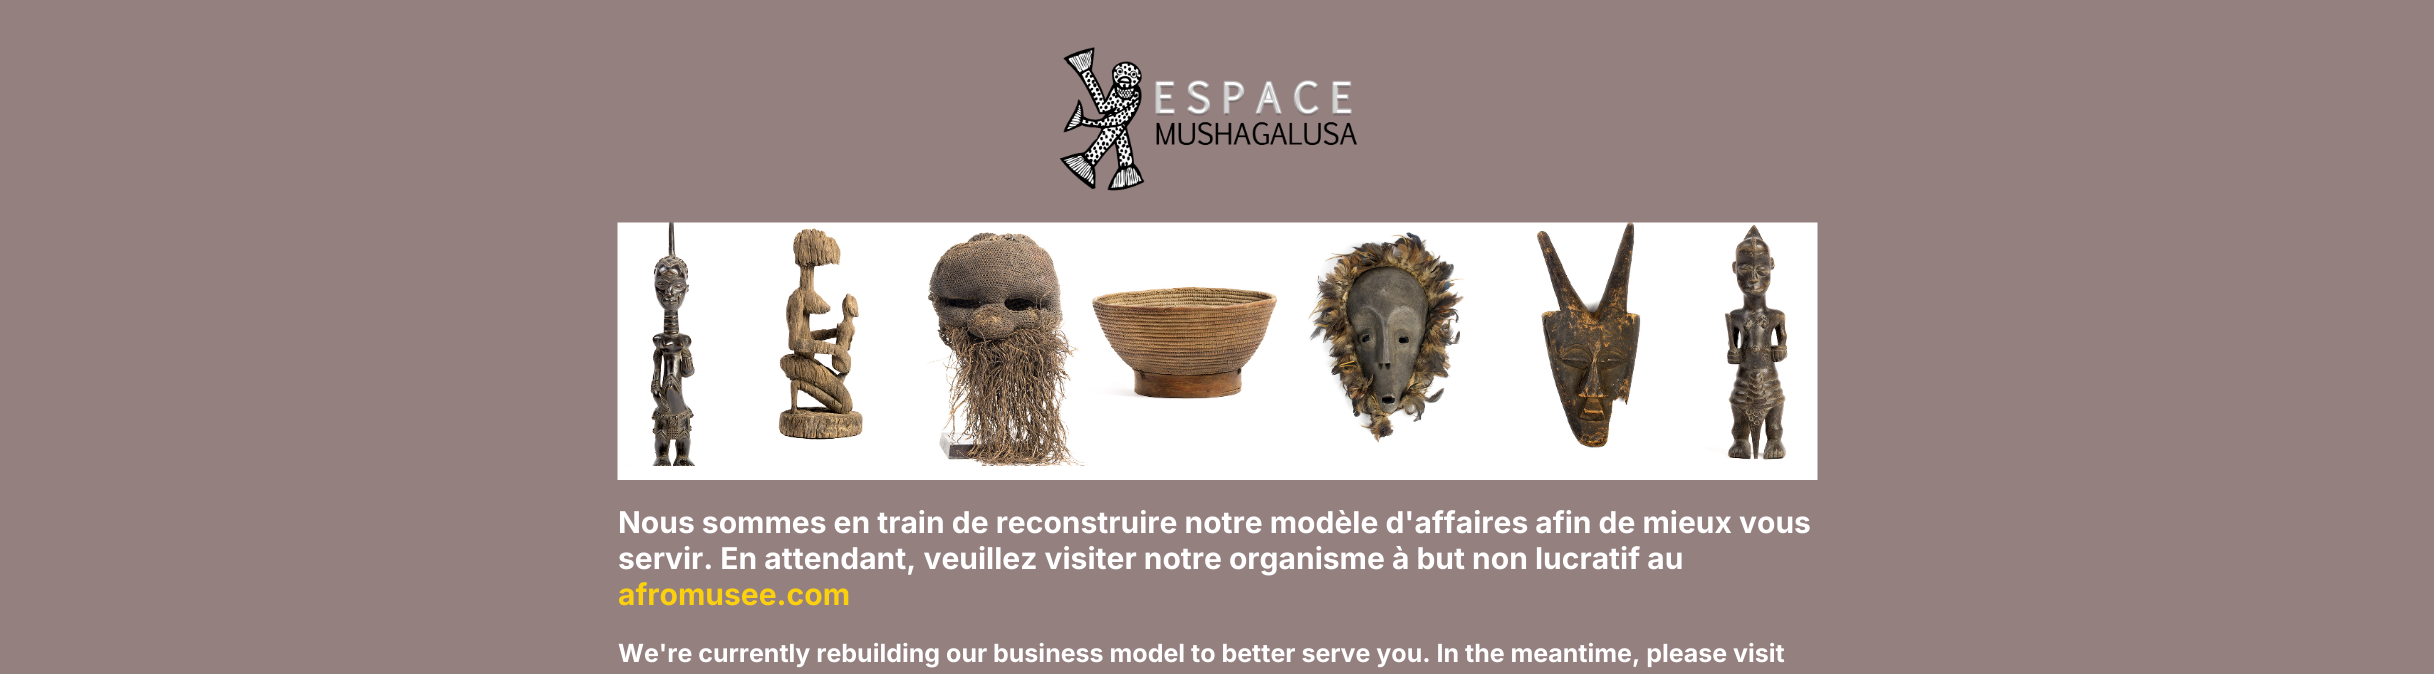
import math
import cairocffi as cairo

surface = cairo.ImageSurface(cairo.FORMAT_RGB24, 2434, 674)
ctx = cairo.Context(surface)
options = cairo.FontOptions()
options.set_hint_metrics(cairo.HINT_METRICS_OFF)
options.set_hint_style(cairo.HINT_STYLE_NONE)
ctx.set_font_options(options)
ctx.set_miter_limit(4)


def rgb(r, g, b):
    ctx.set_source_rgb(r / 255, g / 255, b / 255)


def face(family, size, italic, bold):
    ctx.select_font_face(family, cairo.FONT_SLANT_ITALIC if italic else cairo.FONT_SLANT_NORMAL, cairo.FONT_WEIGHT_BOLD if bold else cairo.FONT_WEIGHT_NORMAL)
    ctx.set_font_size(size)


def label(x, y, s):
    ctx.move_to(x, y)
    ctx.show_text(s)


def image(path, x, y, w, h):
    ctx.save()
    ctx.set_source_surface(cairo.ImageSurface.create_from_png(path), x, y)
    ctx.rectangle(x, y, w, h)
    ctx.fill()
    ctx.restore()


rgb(149, 128, 128)
ctx.paint()
image('image0.png', 1059, 47, 299, 144)
image('image1.png', 617, 222, 1201, 258)
face('Inter', 30, 0, 1)
rgb(255, 255, 255)
label(618, 533, 'Nous sommes en train de reconstruire notre modèle d\'affaires afin de mieux vous')
label(618, 569, 'servir. En attendant, veuillez visiter notre organisme à but non lucratif au')
rgb(251, 208, 15)
label(618, 605, 'afromusee.com')
face('Inter', 25, 0, 1)
rgb(255, 255, 255)
label(618, 662, 'We\'re currently rebuilding our business model to better serve you. In the meantime, please visit')
surface.write_to_png('render.png')
